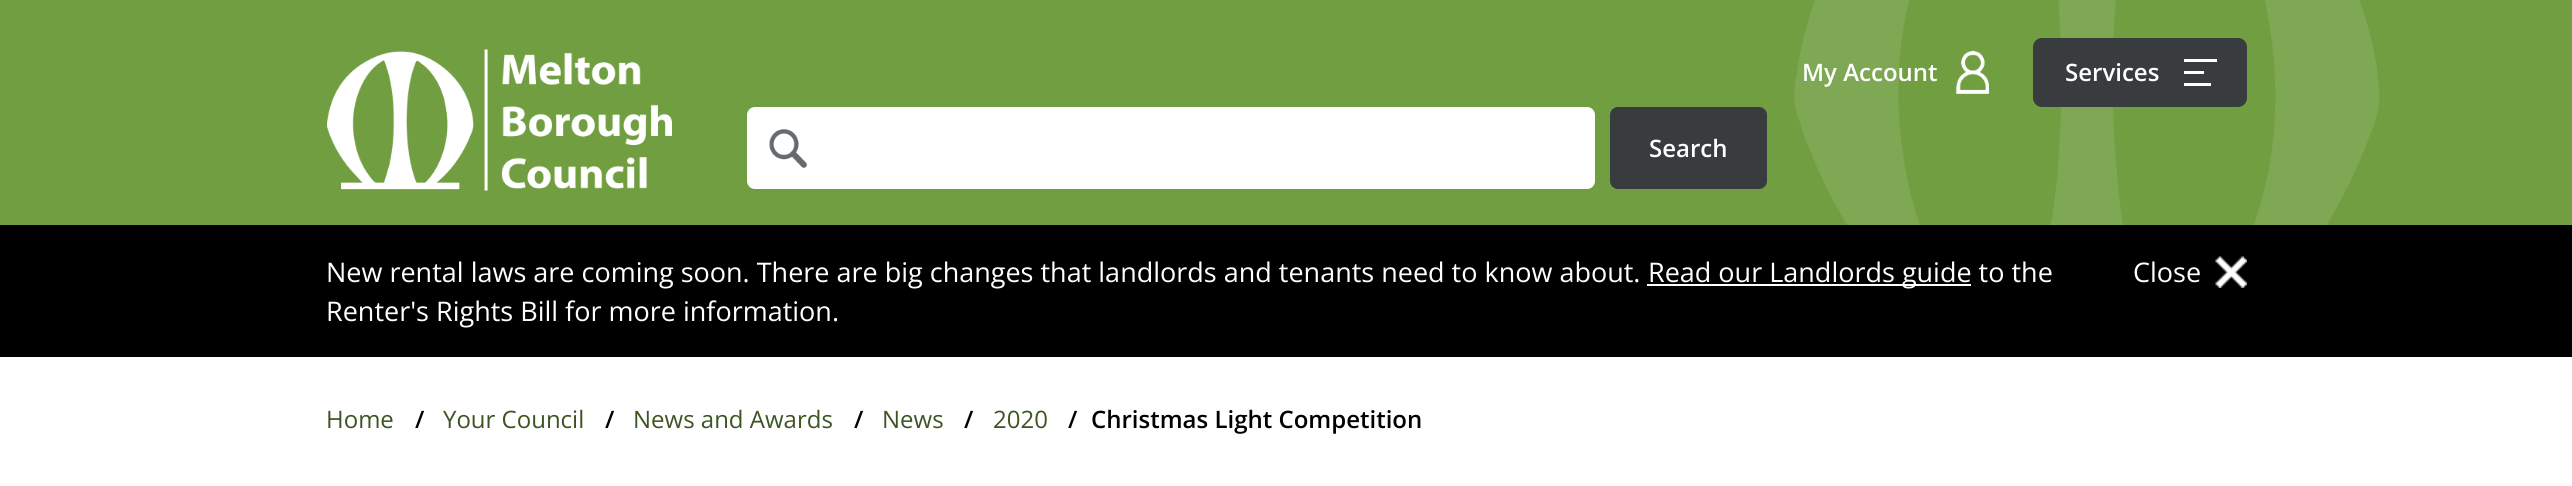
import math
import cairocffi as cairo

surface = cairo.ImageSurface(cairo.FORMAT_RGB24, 2572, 486)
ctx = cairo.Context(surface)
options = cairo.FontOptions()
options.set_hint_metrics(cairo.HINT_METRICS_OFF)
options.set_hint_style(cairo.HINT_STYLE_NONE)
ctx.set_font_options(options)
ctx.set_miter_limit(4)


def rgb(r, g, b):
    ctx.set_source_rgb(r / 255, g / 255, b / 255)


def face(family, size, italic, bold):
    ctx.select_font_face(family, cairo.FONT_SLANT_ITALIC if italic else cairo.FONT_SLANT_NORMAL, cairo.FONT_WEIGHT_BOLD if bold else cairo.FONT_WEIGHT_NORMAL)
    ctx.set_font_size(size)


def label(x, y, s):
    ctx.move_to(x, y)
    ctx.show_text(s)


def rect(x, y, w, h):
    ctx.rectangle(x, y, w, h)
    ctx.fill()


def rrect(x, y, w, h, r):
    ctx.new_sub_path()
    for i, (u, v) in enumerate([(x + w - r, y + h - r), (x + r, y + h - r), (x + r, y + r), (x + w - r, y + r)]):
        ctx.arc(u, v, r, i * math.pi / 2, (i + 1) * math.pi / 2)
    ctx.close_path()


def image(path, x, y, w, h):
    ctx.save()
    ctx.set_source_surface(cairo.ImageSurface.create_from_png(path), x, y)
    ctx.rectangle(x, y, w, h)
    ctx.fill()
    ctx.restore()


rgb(255, 255, 255)
ctx.paint()
rgb(113, 158, 65)
rect(0, 0, 2572, 225)
image('image0.png', 1794, 0, 586, 225)
image('image1.png', 327, 49, 345, 142)
image('image2.png', 1956, 50, 33, 44)
face('Open Sans SemiBold', 24, 0, 0)
rgb(255, 255, 255)
label(1802, 81, 'My Account')
rgb(56, 60, 63)
rrect(2033, 38, 214, 69, 9)
ctx.fill()
rgb(255, 255, 255)
label(2065, 81, 'Services')
rect(2184, 59, 33, 3)
rect(2184, 71, 20, 3)
rect(2184, 83, 27, 3)
rrect(747, 107, 848, 82, 8)
ctx.fill()
image('image3.png', 769, 129, 38, 39)
rgb(56, 60, 63)
rrect(1610, 107, 157, 82, 8)
ctx.fill()
rgb(255, 255, 255)
label(1649, 157, 'Search')
rgb(0, 0, 0)
rect(0, 225, 2572, 132)
face('Open Sans', 27, 0, 0)
rgb(255, 255, 255)
label(326, 282, 'New rental laws are coming soon. There are big changes that landlords and tenants need to know about.')
rect(1647, 284, 324, 2)
label(1648, 282, 'Read our Landlords guide to the')
label(326, 321, 'Renter\'s Rights Bill for more information.')
image('image4.png', 2215, 256, 32, 32)
label(2133, 282, 'Close')
face('Open Sans', 24, 0, 0)
rgb(61, 85, 35)
label(326, 428, 'Home')
face('Open Sans SemiBold', 24, 0, 0)
rgb(0, 0, 0)
label(415, 428, '/')
face('Open Sans', 24, 0, 0)
rgb(61, 85, 35)
label(443, 428, 'Your Council')
face('Open Sans SemiBold', 24, 0, 0)
rgb(0, 0, 0)
label(605, 428, '/')
face('Open Sans', 24, 0, 0)
rgb(61, 85, 35)
label(633, 428, 'News and Awards')
face('Open Sans SemiBold', 24, 0, 0)
rgb(0, 0, 0)
label(854, 428, '/')
face('Open Sans', 24, 0, 0)
rgb(61, 85, 35)
label(882, 428, 'News')
face('Open Sans SemiBold', 24, 0, 0)
rgb(0, 0, 0)
label(964, 428, '/')
face('Open Sans', 24, 0, 0)
rgb(61, 85, 35)
label(993, 428, '2020')
face('Open Sans SemiBold', 24, 0, 0)
rgb(0, 0, 0)
label(1068, 428, '/')
label(1091, 428, 'Christmas Light Competition')
surface.write_to_png('render.png')
